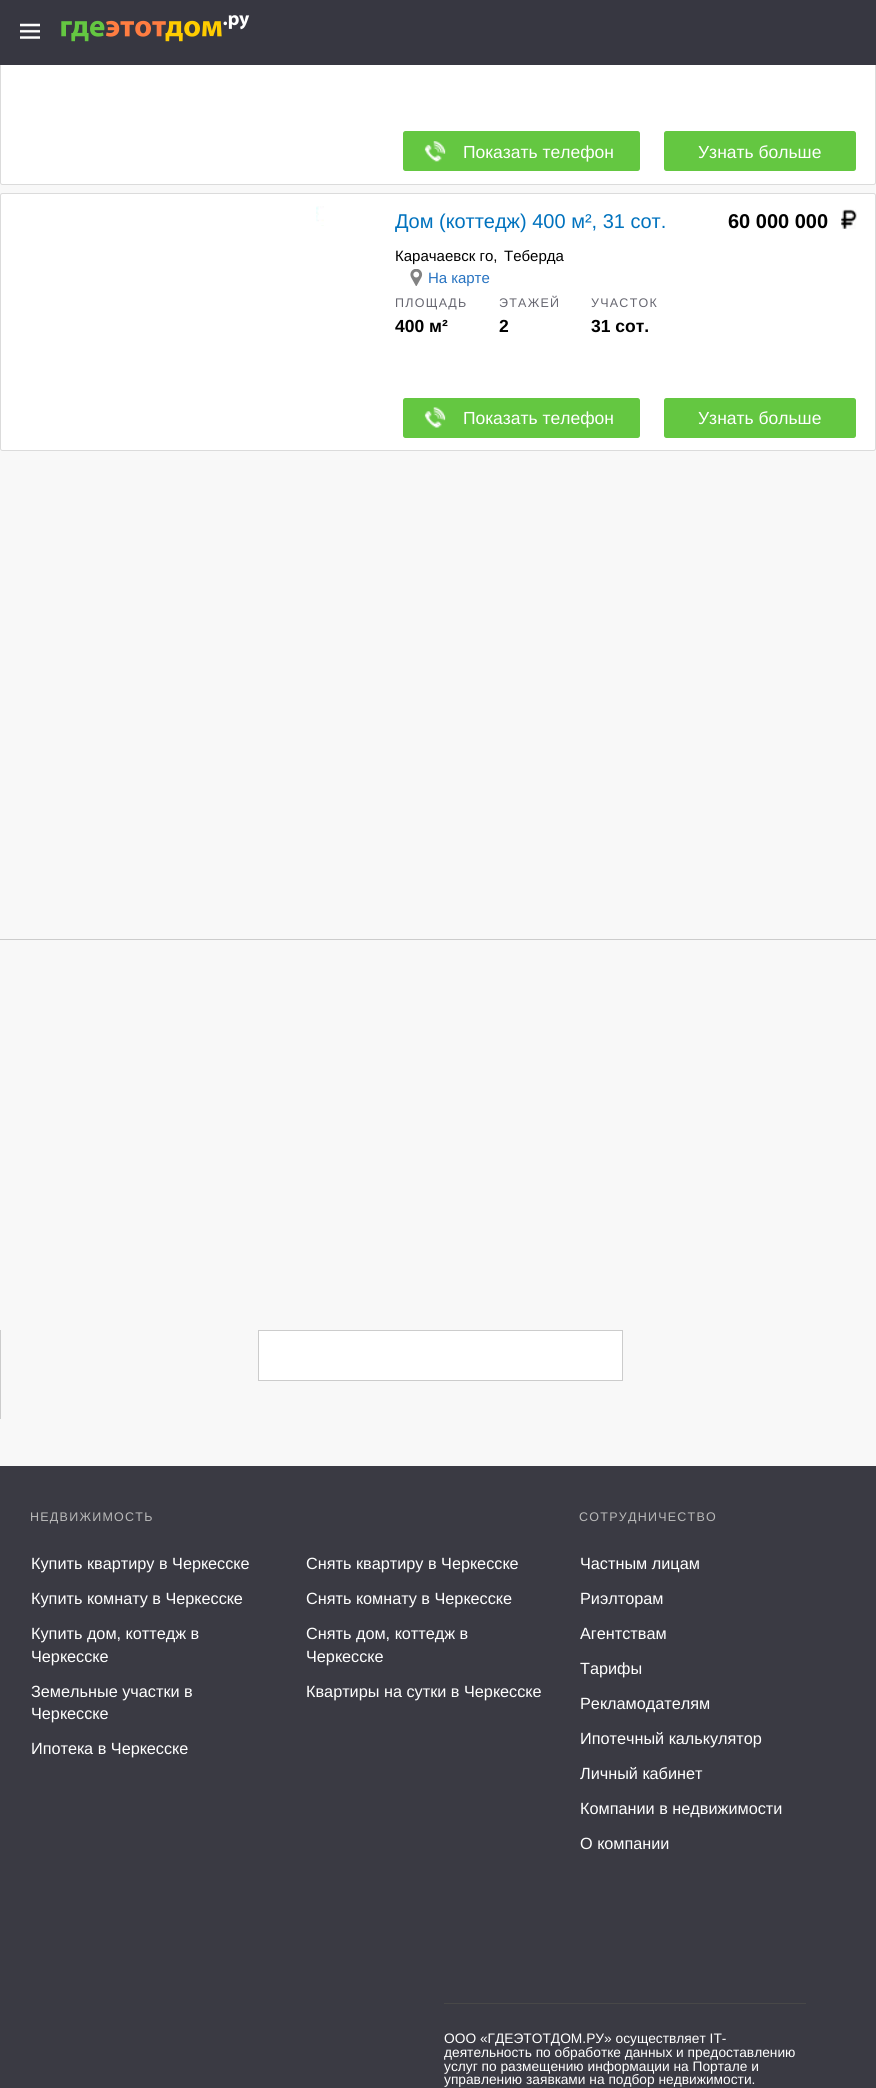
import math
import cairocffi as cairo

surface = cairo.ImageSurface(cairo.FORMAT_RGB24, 876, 2088)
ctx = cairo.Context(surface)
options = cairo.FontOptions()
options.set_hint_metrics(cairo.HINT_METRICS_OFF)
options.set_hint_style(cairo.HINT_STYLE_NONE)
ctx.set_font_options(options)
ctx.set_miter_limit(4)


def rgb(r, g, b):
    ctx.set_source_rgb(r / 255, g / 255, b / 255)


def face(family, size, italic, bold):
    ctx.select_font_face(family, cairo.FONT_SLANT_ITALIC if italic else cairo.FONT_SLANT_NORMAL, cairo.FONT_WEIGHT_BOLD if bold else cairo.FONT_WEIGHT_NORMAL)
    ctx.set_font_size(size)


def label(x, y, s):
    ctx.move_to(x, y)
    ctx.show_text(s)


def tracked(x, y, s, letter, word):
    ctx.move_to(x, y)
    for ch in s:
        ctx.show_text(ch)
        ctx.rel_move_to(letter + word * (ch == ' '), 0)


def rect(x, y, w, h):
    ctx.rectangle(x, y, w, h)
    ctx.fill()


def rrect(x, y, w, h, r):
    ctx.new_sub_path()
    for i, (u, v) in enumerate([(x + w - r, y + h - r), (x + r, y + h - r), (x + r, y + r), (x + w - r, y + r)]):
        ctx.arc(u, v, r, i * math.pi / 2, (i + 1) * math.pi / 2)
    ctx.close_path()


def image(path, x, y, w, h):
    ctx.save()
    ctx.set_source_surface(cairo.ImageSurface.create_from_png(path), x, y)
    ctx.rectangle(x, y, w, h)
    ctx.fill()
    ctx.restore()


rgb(248, 248, 248)
ctx.paint()
rgb(255, 255, 255)
rrect(0.5, -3.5, 875, 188, 2)
ctx.fill_preserve()
rgb(219, 219, 219)
ctx.set_line_width(1)
ctx.stroke()
rgb(55, 55, 65)
rect(0, 0, 876, 65)
image('image0.png', 20, 23, 20, 16)
image('image1.png', 61, 15, 189, 27)
rgb(100, 199, 65)
rrect(403, 131, 237, 40, 2.5)
ctx.fill()
image('image2.png', 424, 141, 22, 21)
face('Liberation Sans', 17.5, 0, 0)
rgb(255, 255, 255)
label(463, 158, 'Показать телефон')
rgb(100, 199, 65)
rrect(664, 131, 192, 40, 2.5)
ctx.fill()
rgb(255, 255, 255)
label(698, 158, 'Узнать больше')
rrect(0.5, 193.5, 875, 257, 2)
ctx.fill_preserve()
rgb(219, 219, 219)
ctx.stroke()
image('image3.png', 316, 206, 8, 20)
face('Liberation Sans', 20, 0, 0)
rgb(0, 114, 190)
label(395, 228, 'Дом (коттедж) 400 м², 31 сот.')
face('Liberation Sans', 15, 0, 0)
rgb(0, 0, 0)
label(395, 261, 'Карачаевск го,')
label(504, 261, 'Теберда')
image('image4.png', 410, 269, 13, 17)
rgb(39, 115, 193)
label(428, 283, 'На карте')
face('Liberation Sans', 20, 0, 1)
rgb(0, 0, 0)
label(728, 228, '60 000 000')
image('image5.png', 841, 209, 16, 20)
face('Liberation Sans', 12.5, 0, 0)
rgb(102, 102, 112)
tracked(395, 307, 'ПЛОЩАДЬ', 1.25, 0)
face('Liberation Sans', 17.5, 0, 1)
rgb(0, 0, 0)
label(395, 332, '400 м²')
face('Liberation Sans', 12.5, 0, 0)
rgb(102, 102, 112)
tracked(499, 307, 'ЭТАЖЕЙ', 1.25, 0)
face('Liberation Sans', 17.5, 0, 1)
rgb(0, 0, 0)
label(499, 332, '2')
face('Liberation Sans', 12.5, 0, 0)
rgb(102, 102, 112)
tracked(591, 307, 'УЧАСТОК', 1.25, 0)
face('Liberation Sans', 17.5, 0, 1)
rgb(0, 0, 0)
label(591, 332, '31 сот.')
rgb(100, 199, 65)
rrect(403, 398, 237, 40, 2.5)
ctx.fill()
image('image6.png', 424, 407, 22, 21)
face('Liberation Sans', 17.5, 0, 0)
rgb(255, 255, 255)
label(463, 424, 'Показать телефон')
rgb(100, 199, 65)
rrect(664, 398, 192, 40, 2.5)
ctx.fill()
rgb(255, 255, 255)
label(698, 424, 'Узнать больше')
rgb(204, 204, 204)
rect(0, 939, 876, 1)
rect(0, 1330, 1, 89)
rgb(255, 255, 255)
ctx.rectangle(258.5, 1330.5, 364, 50)
ctx.fill_preserve()
rgb(204, 204, 204)
ctx.stroke()
rgb(58, 58, 67)
rect(0, 1466, 876, 622)
face('Liberation Sans', 12.5, 0, 0)
rgb(185, 185, 185)
tracked(30, 1521, 'НЕДВИЖИМОСТЬ', 1.25, 0)
face('Liberation Sans', 16.25, 0, 0)
rgb(255, 255, 255)
label(31, 1569, 'Купить квартиру в Черкесске')
label(31, 1604, 'Купить комнату в Черкесске')
label(31, 1639, 'Купить дом, коттедж в')
label(31, 1662, 'Черкесске')
label(31, 1697, 'Земельные участки в')
label(31, 1719, 'Черкесске')
label(31, 1754, 'Ипотека в Черкесске')
label(306, 1569, 'Снять квартиру в Черкесске')
label(306, 1604, 'Снять комнату в Черкесске')
label(306, 1639, 'Снять дом, коттедж в')
label(306, 1662, 'Черкесске')
label(306, 1697, 'Квартиры на сутки в Черкесске')
face('Liberation Sans', 12.5, 0, 0)
rgb(185, 185, 185)
tracked(579, 1521, 'СОТРУДНИЧЕСТВО', 1.25, 0)
face('Liberation Sans', 16.25, 0, 0)
rgb(255, 255, 255)
label(580, 1569, 'Частным лицам')
label(580, 1604, 'Риэлторам')
label(580, 1639, 'Агентствам')
label(580, 1674, 'Тарифы')
label(580, 1709, 'Рекламодателям')
label(580, 1744, 'Ипотечный калькулятор')
label(580, 1779, 'Личный кабинет')
label(580, 1814, 'Компании в недвижимости')
label(580, 1849, 'О компании')
rgb(72, 72, 72)
rect(444, 2003, 362, 1)
face('Liberation Sans', 13.75, 0, 0)
rgb(255, 255, 255)
label(444, 2043, 'ООО «ГДЕЭТОТДОМ.РУ» осуществляет IT-')
label(444, 2057, 'деятельность по обработке данных и предоставлению')
label(444, 2071, 'услуг по размещению информации на Портале и')
label(444, 2084, 'управлению заявками на подбор недвижимости.')
surface.write_to_png('render.png')
